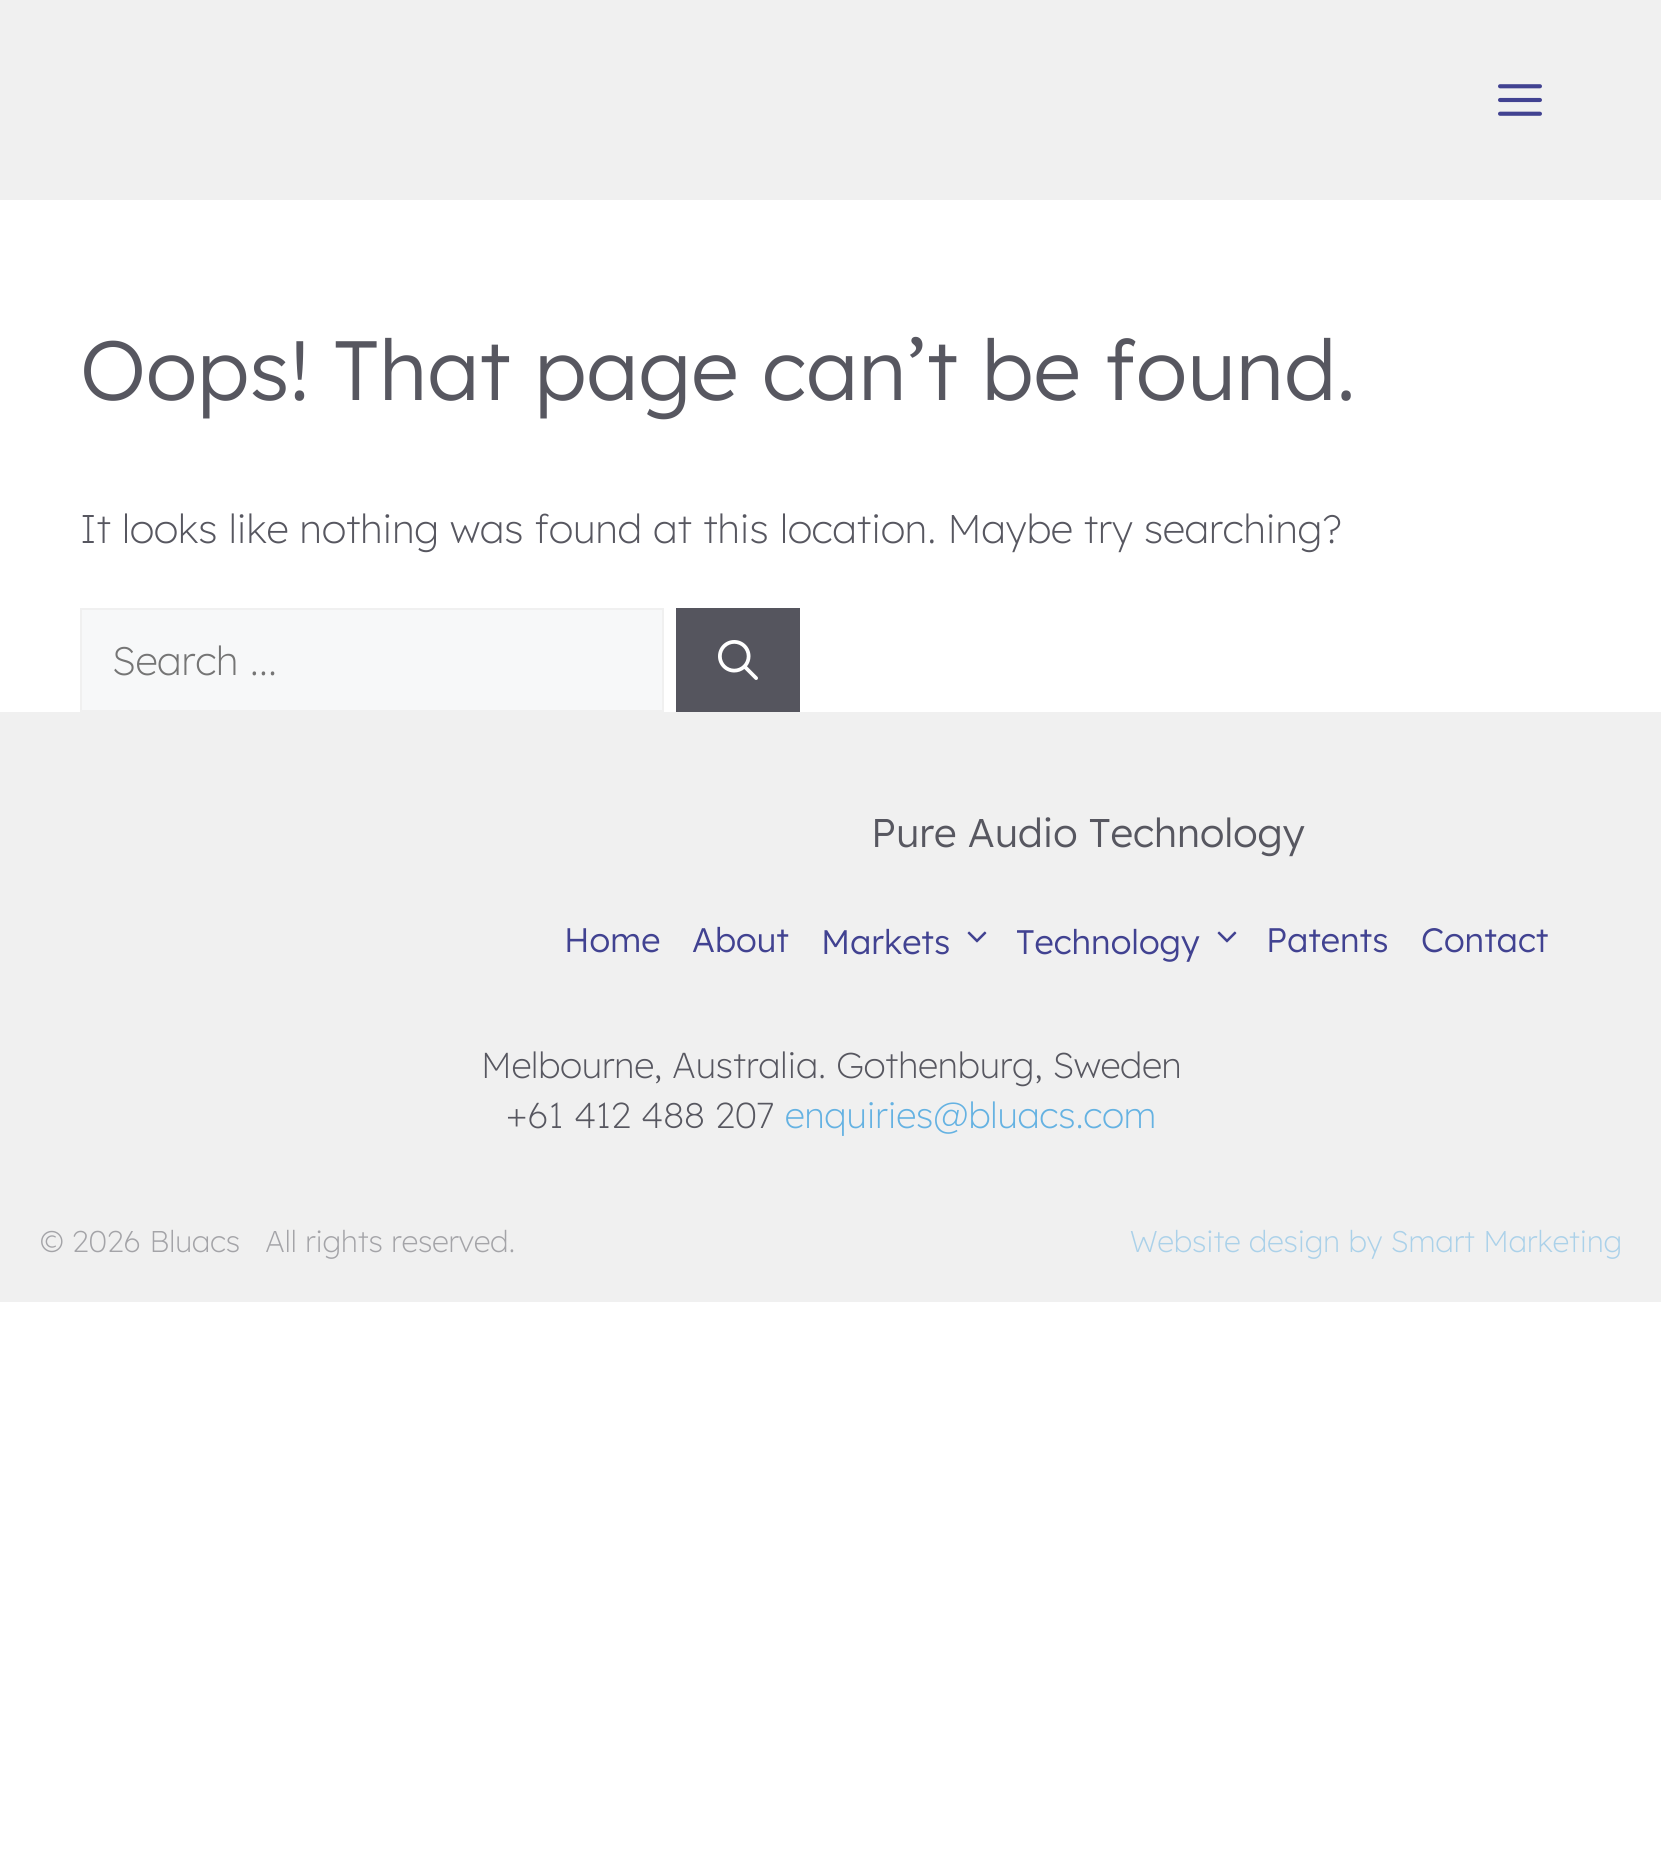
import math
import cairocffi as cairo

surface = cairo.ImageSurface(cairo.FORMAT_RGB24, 1661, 1875)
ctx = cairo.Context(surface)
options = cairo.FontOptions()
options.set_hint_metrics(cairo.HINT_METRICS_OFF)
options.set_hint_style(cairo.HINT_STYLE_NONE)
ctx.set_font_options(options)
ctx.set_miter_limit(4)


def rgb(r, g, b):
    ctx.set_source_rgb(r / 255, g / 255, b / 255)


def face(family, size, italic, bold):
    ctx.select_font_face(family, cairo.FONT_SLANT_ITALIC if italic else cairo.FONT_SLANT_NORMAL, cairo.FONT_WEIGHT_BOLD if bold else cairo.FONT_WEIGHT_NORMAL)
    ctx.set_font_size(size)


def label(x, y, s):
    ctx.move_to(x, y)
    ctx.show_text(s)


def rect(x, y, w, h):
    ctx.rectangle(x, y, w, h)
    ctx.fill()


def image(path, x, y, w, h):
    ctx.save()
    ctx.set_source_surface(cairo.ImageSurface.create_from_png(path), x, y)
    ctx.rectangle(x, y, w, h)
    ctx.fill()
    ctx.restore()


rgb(255, 255, 255)
ctx.paint()
rgb(240, 240, 240)
rect(0, 0, 1661, 200)
image('image0.png', 1498, 84, 44, 32)
face('Lexend Light', 84, 0, 0)
rgb(87, 87, 96)
label(80, 400, 'Oops! That page can’t be found.')
face('Lexend ExtraLight', 40, 0, 0)
label(80, 543, 'It looks like nothing was found at this location. Maybe try searching?')
rgb(247, 248, 249)
ctx.rectangle(81, 609, 582, 102)
ctx.fill_preserve()
rgb(240, 240, 240)
ctx.stroke()
rgb(117, 117, 117)
label(112, 675, 'Search …')
rgb(85, 85, 94)
rect(676, 608, 124, 104)
image('image1.png', 718, 640, 40, 40)
rgb(240, 240, 240)
rect(0, 712, 1661, 590)
face('Lexend Light', 40, 0, 0)
rgb(87, 87, 96)
label(871, 847, 'Pure Audio Technology')
face('Lexend Light', 34, 0, 0)
rgb(65, 66, 145)
label(564, 952, 'Home')
label(692, 952, 'About')
label(821, 954, 'Markets')
image('image2.png', 967, 931, 20, 12)
label(1016, 954, 'Technology')
image('image2.png', 1217, 931, 20, 12)
label(1266, 952, 'Patents')
label(1421, 952, 'Contact')
face('Lexend ExtraLight', 36, 0, 0)
rgb(87, 87, 96)
label(481, 1078, 'Melbourne, Australia. Gothenburg, Sweden')
label(506, 1128, '+61 412 488 207')
rgb(101, 178, 226)
label(785, 1128, 'enquiries@bluacs.com')
face('Lexend ExtraLight', 30, 0, 0)
rgb(164, 164, 168)
label(40, 1252, '© 2026 Bluacs   All rights reserved.')
rgb(171, 209, 233)
label(1130, 1252, 'Website design by Smart Marketing')
surface.write_to_png('render.png')
